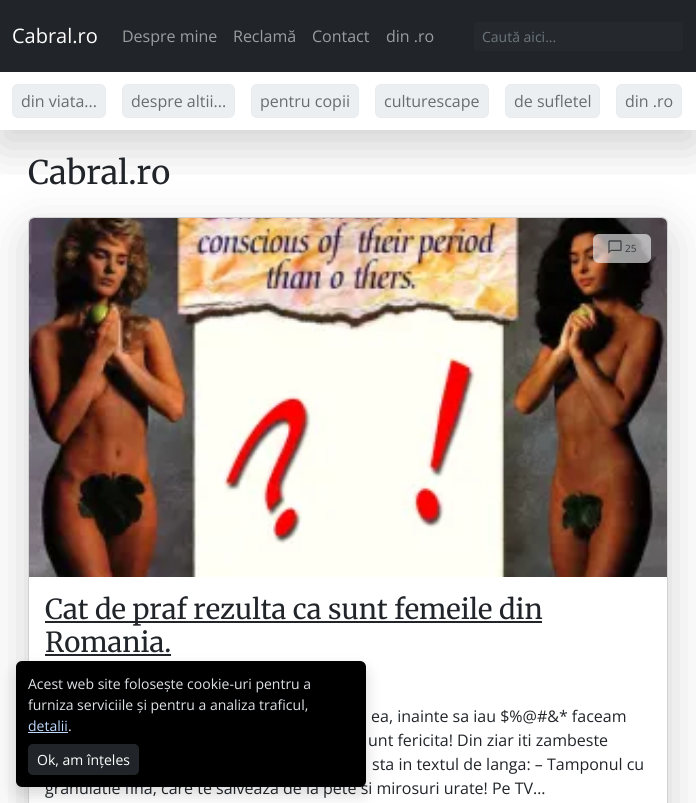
import math
import cairocffi as cairo

surface = cairo.ImageSurface(cairo.FORMAT_RGB24, 696, 803)
ctx = cairo.Context(surface)
options = cairo.FontOptions()
options.set_hint_metrics(cairo.HINT_METRICS_OFF)
options.set_hint_style(cairo.HINT_STYLE_NONE)
ctx.set_font_options(options)
ctx.set_miter_limit(4)


def rgb(r, g, b):
    ctx.set_source_rgb(r / 255, g / 255, b / 255)


def face(family, size, italic, bold):
    ctx.select_font_face(family, cairo.FONT_SLANT_ITALIC if italic else cairo.FONT_SLANT_NORMAL, cairo.FONT_WEIGHT_BOLD if bold else cairo.FONT_WEIGHT_NORMAL)
    ctx.set_font_size(size)


def label(x, y, s):
    ctx.move_to(x, y)
    ctx.show_text(s)


def rect(x, y, w, h):
    ctx.rectangle(x, y, w, h)
    ctx.fill()


def rrect(x, y, w, h, r):
    ctx.new_sub_path()
    for i, (u, v) in enumerate([(x + w - r, y + h - r), (x + r, y + h - r), (x + r, y + r), (x + w - r, y + r)]):
        ctx.arc(u, v, r, i * math.pi / 2, (i + 1) * math.pi / 2)
    ctx.close_path()


def soft_shadow(x, y, w, h, r, blur, alpha):
    ctx.push_group_with_content(cairo.CONTENT_ALPHA)
    ctx.set_operator(cairo.OPERATOR_SOURCE)
    for i in range(15, -16, -2):
        e = blur * i / 6
        if min(w, h) + 2 * e > 0:
            ctx.set_source_rgba(0, 0, 0, alpha * math.erfc((i - 1) / 8.5) / 2)
            rrect(x - e, y - e, w + 2 * e, h + 2 * e, max(0, min(r + e + blur * .6, min(w, h) / 2 + e)))
            ctx.fill()
    ctx.mask(ctx.pop_group())


def image(path, x, y, w, h):
    ctx.save()
    ctx.set_source_surface(cairo.ImageSurface.create_from_png(path), x, y)
    ctx.rectangle(x, y, w, h)
    ctx.fill()
    ctx.restore()


rgb(255, 255, 255)
ctx.paint()
ctx.save()
ctx.rectangle(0, 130, 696, 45)
ctx.clip()
rgb(0, 0, 0)
soft_shadow(0, 16, 696, 130, 0, 24, 0.18)
ctx.restore()
rgb(33, 37, 41)
rect(0, 0, 696, 72)
face('Open Sans', 20, 0, 0)
rgb(255, 255, 255)
label(12, 43, 'Cabral.ro')
face('Open Sans', 16, 0, 0)
rgb(155, 157, 159)
label(122, 42, 'Despre mine')
label(233, 42, 'Reclamă')
label(312, 42, 'Contact')
label(386, 42, 'din .ro')
rgb(37, 41, 45)
rrect(474, 22, 209, 29, 4)
ctx.fill()
face('Open Sans', 14, 0, 0)
rgb(108, 117, 125)
label(482, 42, 'Caută aici...')
rgb(236, 239, 242)
rrect(12.5, 84.5, 93, 33, 5.5)
ctx.fill_preserve()
rgb(233, 236, 239)
ctx.set_line_width(1)
ctx.stroke()
face('Open Sans', 16, 0, 0)
rgb(104, 108, 111)
label(21, 107, 'din viata...')
rgb(236, 239, 242)
rrect(122.5, 84.5, 112, 33, 5.5)
ctx.fill_preserve()
rgb(233, 236, 239)
ctx.stroke()
rgb(104, 108, 111)
label(131, 107, 'despre altii...')
rgb(236, 239, 242)
rrect(251.5, 84.5, 107, 33, 5.5)
ctx.fill_preserve()
rgb(233, 236, 239)
ctx.stroke()
rgb(104, 108, 111)
label(260, 107, 'pentru copii')
rgb(236, 239, 242)
rrect(375.5, 84.5, 113, 33, 5.5)
ctx.fill_preserve()
rgb(233, 236, 239)
ctx.stroke()
rgb(104, 108, 111)
label(384, 107, 'culturescape')
rgb(236, 239, 242)
rrect(505.5, 84.5, 94, 33, 5.5)
ctx.fill_preserve()
rgb(233, 236, 239)
ctx.stroke()
rgb(104, 108, 111)
label(514, 107, 'de sufletel')
rgb(236, 239, 242)
rrect(616.5, 84.5, 65, 33, 5.5)
ctx.fill_preserve()
rgb(233, 236, 239)
ctx.stroke()
rgb(104, 108, 111)
label(625, 107, 'din .ro')
face('Merriweather', 32.5, 0, 0)
rgb(33, 37, 41)
label(28, 184, 'Cabral.ro')
rgb(0, 0, 0)
soft_shadow(28, 233, 640, 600, 6, 24, 0.18)
rgb(255, 255, 255)
rrect(28.5, 217.5, 639, 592, 5.5)
ctx.fill_preserve()
rgb(210, 210, 210)
ctx.stroke()
image('image0.png', 29, 218, 638, 359)
ctx.set_source_rgba(1, 1, 1, 0.6)
rrect(593, 234, 58, 29, 6)
ctx.fill()
image('image1.png', 608, 240, 14, 14)
face('Open Sans', 10, 0, 0)
rgb(52, 58, 64)
label(625, 252, '25')
rgb(33, 37, 41)
rect(45, 621, 497, 2)
face('Merriweather', 27.5, 0, 0)
label(45, 619, 'Cat de praf rezulta ca sunt femeile din')
label(45, 652, 'Romania.')
rect(45, 654, 126, 2)
face('Open Sans', 16, 0, 0)
label(371, 722, 'ea, inainte sa iau $%@#&* faceam')
label(368, 746, 'unt fericita! Din ziar iti zambeste')
label(372, 770, 'sta in textul de langa: – Tamponul cu')
label(45, 794, 'granulatie fina, care te salveaza de la pete si mirosuri urate! Pe TV…')
rgb(0, 0, 0)
soft_shadow(16, 669, 350, 126, 6, 8, 0.15)
rgb(0, 0, 0)
rrect(16, 661, 350, 126, 6)
ctx.fill()
face('Open Sans', 14, 0, 0)
rgb(222, 226, 230)
label(28, 689, 'Acest web site folosește cookie-uri pentru a')
label(28, 710, 'furniza serviciile și pentru a analiza traficul,')
rgb(190, 216, 254)
label(28, 731, 'detalii')
rect(28, 732, 40, 1)
rgb(222, 226, 230)
label(68, 731, '.')
rgb(33, 37, 41)
rrect(28.5, 744.5, 110, 30, 4.5)
ctx.fill_preserve()
ctx.stroke()
rgb(255, 255, 255)
label(37, 765, 'Ok, am înțeles')
surface.write_to_png('render.png')
